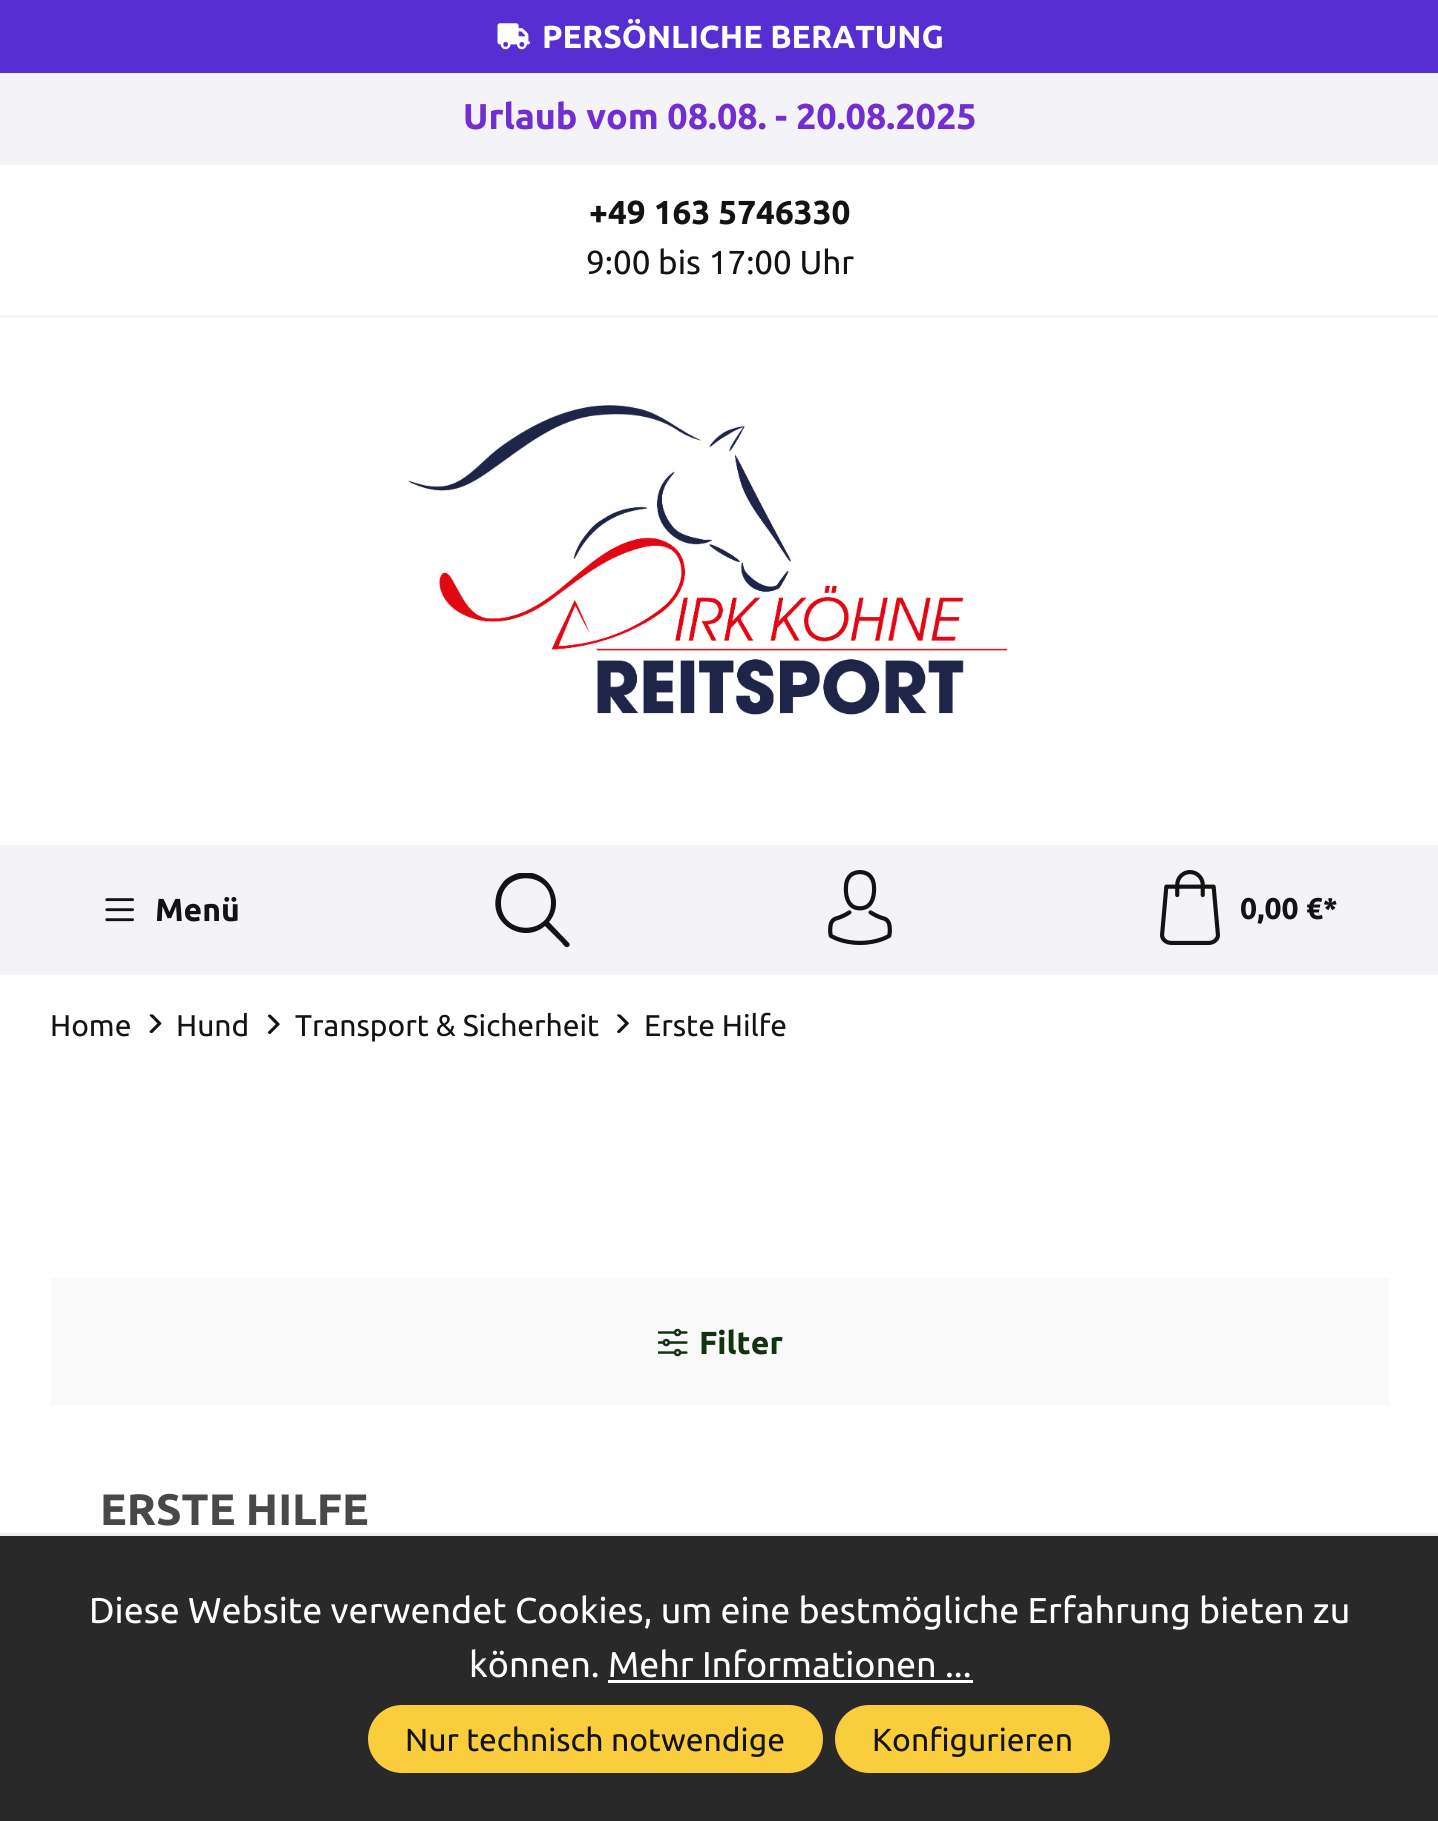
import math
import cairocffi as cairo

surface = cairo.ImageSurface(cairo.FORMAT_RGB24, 1438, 1821)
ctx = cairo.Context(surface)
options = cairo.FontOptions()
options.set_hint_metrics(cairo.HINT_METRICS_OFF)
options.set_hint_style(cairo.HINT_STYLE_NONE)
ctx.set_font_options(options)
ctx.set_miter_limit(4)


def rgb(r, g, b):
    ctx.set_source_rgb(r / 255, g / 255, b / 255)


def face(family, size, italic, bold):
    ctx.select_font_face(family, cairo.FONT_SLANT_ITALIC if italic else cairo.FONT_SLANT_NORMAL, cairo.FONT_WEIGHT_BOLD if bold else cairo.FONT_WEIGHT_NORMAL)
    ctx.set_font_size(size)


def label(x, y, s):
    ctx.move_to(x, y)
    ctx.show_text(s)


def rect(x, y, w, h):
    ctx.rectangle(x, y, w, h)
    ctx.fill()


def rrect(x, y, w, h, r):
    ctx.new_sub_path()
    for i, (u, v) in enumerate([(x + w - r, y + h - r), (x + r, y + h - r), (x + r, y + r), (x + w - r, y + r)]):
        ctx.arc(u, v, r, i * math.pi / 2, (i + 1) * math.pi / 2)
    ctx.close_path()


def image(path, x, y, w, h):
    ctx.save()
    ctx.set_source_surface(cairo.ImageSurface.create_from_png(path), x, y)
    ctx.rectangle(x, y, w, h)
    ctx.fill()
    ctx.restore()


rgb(255, 255, 255)
ctx.paint()
rgb(86, 46, 209)
rect(0, 0, 1438, 73)
image('image0.png', 497, 23, 33, 27)
face('Ubuntu', 31.9, 0, 1)
rgb(255, 255, 255)
label(542, 48, 'PERSÖNLICHE BERATUNG')
rgb(244, 243, 247)
rect(0, 73, 1438, 92)
face('Ubuntu', 35.9, 0, 1)
rgb(114, 46, 209)
label(463, 129, 'Urlaub vom 08.08. - 20.08.2025')
rgb(244, 243, 247)
rect(0, 315, 1438, 3)
face('Ubuntu', 33.25, 0, 1)
rgb(19, 19, 19)
label(589, 224, '+49 163 5746330')
face('Ubuntu', 33.25, 0, 0)
label(586, 274, '9:00 bis 17:00 Uhr')
image('image1.png', 407, 405, 601, 311)
rgb(244, 243, 247)
rect(0, 845, 1438, 130)
image('image2.png', 105, 898, 29, 24)
face('Ubuntu', 31.9, 0, 1)
rgb(19, 19, 19)
label(155, 921, 'Menü')
ctx.save()
ctx.rectangle(495, 873, 75, 75)
ctx.clip()
ctx.new_path()
ctx.move_to(569, 943)
ctx.line_to(549, 922)
ctx.curve_to(567, 901, 548, 867, 519, 873)
ctx.curve_to(514, 874, 508, 877, 504, 881)
ctx.curve_to(500, 886, 497, 891, 496, 897)
ctx.curve_to(490, 925, 524, 944, 545, 926)
ctx.line_to(562, 943)
ctx.curve_to(563, 945, 566, 948, 568, 947)
ctx.curve_to(570, 946, 570, 944, 569, 943)
ctx.close_path()
ctx.move_to(501, 903)
ctx.curve_to(501, 870, 551, 870, 551, 903)
ctx.curve_to(551, 936, 501, 936, 501, 903)
ctx.close_path()
ctx.fill()
ctx.restore()
image('image3.png', 828, 870, 64, 75)
image('image4.png', 1160, 870, 60, 75)
face('Ubuntu', 30, 0, 1)
label(1240, 919, '0,00 €*')
face('Ubuntu', 30, 0, 0)
label(50, 1036, 'Home')
image('image5.png', 149, 1014, 13, 19)
label(176, 1036, 'Hund')
image('image6.png', 267, 1014, 13, 20)
label(295, 1036, 'Transport & Sicherheit')
image('image7.png', 617, 1014, 12, 19)
label(644, 1036, 'Erste Hilfe')
rgb(249, 249, 249)
rect(50, 1278, 1340, 127)
image('image8.png', 658, 1328, 30, 29)
face('Ubuntu', 31.9, 0, 1)
rgb(17, 51, 17)
label(699, 1354, 'Filter')
face('Ubuntu', 44, 0, 1)
rgb(72, 72, 72)
label(100, 1525, 'ERSTE HILFE')
rgb(41, 41, 41)
rect(0, 1536, 1438, 285)
rgb(236, 236, 231)
rect(0, 1533, 1438, 3)
face('Ubuntu', 35.9, 0, 0)
rgb(255, 255, 255)
label(89, 1623, 'Diese Website verwendet Cookies, um eine bestmögliche Erfahrung bieten zu')
label(469, 1677, 'können. Mehr Informationen ...')
rect(608, 1680, 365, 3)
rgb(249, 205, 59)
rrect(369.5, 1706.5, 452, 65, 32.5)
ctx.fill_preserve()
ctx.set_line_width(3)
ctx.stroke()
face('Ubuntu', 31.9, 0, 0)
rgb(19, 19, 19)
label(405, 1751, 'Nur technisch notwendige')
rgb(249, 205, 59)
rrect(836.5, 1706.5, 272, 65, 32.5)
ctx.fill_preserve()
ctx.stroke()
rgb(19, 19, 19)
label(872, 1751, 'Konfigurieren')
surface.write_to_png('render.png')
